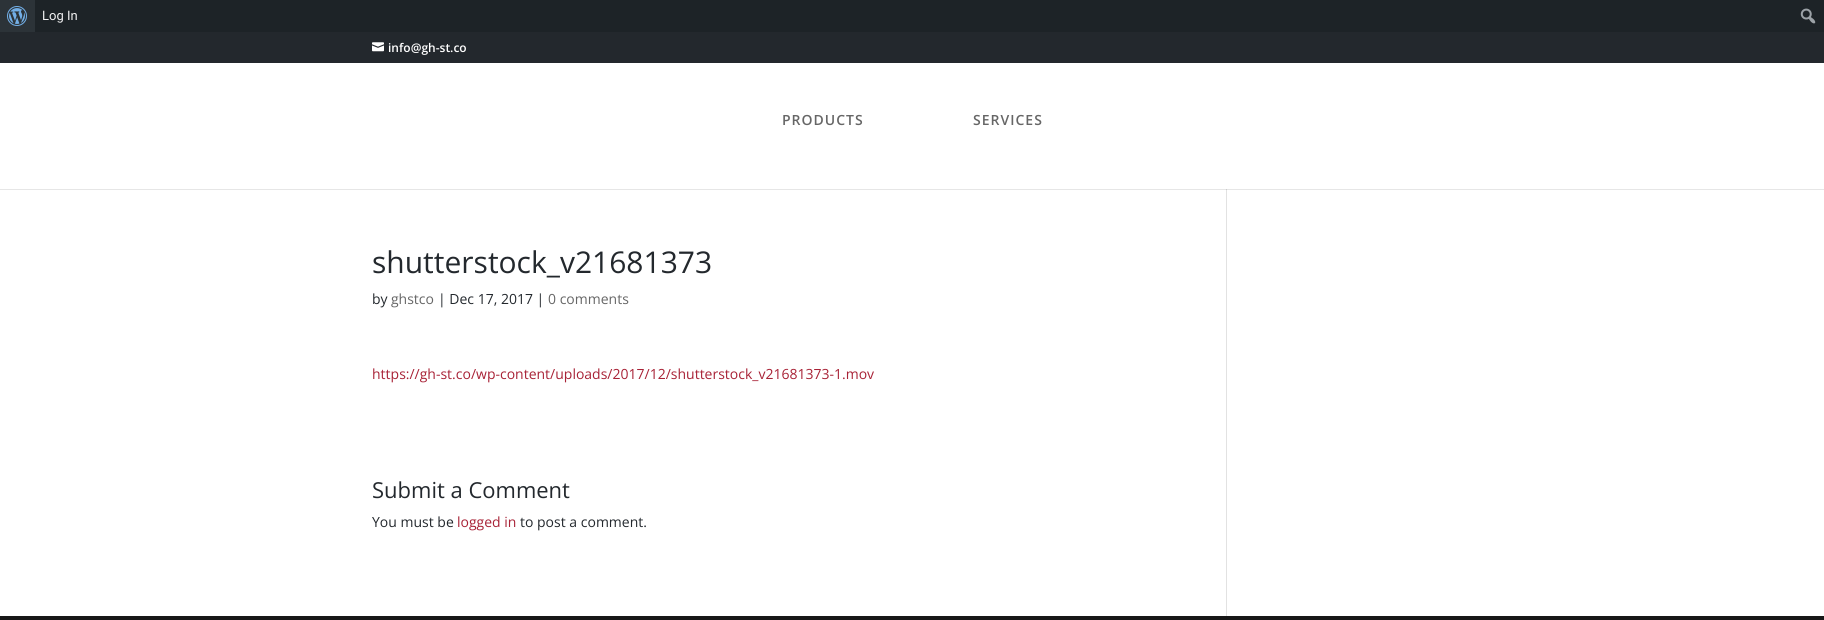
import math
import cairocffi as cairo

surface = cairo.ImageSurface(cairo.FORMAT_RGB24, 1824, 620)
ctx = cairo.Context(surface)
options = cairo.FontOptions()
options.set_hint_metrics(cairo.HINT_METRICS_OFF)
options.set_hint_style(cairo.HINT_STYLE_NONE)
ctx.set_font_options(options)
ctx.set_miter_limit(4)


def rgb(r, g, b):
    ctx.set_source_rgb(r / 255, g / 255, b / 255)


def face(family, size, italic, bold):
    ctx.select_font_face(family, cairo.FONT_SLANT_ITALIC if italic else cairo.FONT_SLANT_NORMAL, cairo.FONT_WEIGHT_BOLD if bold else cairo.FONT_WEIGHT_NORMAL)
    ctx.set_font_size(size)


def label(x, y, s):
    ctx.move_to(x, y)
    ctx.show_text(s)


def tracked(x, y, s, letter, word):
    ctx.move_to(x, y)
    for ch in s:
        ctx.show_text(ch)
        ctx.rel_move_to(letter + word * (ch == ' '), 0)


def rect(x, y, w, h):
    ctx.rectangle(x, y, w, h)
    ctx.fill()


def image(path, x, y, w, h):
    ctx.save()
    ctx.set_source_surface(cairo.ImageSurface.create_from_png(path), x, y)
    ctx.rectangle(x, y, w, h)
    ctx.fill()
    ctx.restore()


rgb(255, 255, 255)
ctx.paint()
rgb(230, 230, 230)
rect(0, 189, 1824, 1)
rgb(29, 35, 39)
rect(35, 0, 1789, 32)
rgb(44, 51, 56)
rect(0, 0, 35, 32)
image('image0.png', 7, 6, 20, 20)
face('Roboto', 13, 0, 0)
rgb(240, 240, 241)
label(42, 20, 'Log In')
image('image1.png', 1800, 8, 16, 16)
rgb(35, 40, 45)
rect(0, 32, 1824, 31)
image('image2.png', 372, 42, 12, 10)
face('Open Sans SemiBold', 12, 0, 0)
rgb(255, 255, 255)
label(388, 52, 'info@gh-st.co')
face('Open Sans SemiBold', 14, 0, 0)
rgb(102, 102, 102)
tracked(782, 125, 'PRODUCTS', 1, 0)
tracked(973, 125, 'SERVICES', 1, 0)
face('Open Sans', 30, 0, 0)
rgb(35, 40, 45)
label(372, 273, 'shutterstock_v21681373')
face('Open Sans', 14, 0, 0)
label(372, 304, 'by')
rgb(102, 102, 102)
label(391, 304, 'ghstco')
rgb(35, 40, 45)
label(438, 304, '| Dec 17, 2017 |')
rgb(102, 102, 102)
label(548, 304, '0 comments')
rgb(168, 34, 54)
label(372, 379, 'https://gh-st.co/wp-content/uploads/2017/12/shutterstock_v21681373-1.mov')
face('Open Sans', 22, 0, 0)
rgb(35, 40, 45)
label(372, 498, 'Submit a Comment')
face('Open Sans', 14, 0, 0)
label(372, 527, 'You must be')
rgb(168, 34, 54)
label(457, 527, 'logged in')
rgb(35, 40, 45)
label(520, 527, 'to post a comment.')
rgb(226, 226, 226)
rect(1226, 189, 1, 427)
rgb(203, 203, 203)
rect(1226, 189, 1, 1)
rgb(23, 23, 23)
rect(0, 616, 1824, 4)
surface.write_to_png('render.png')
